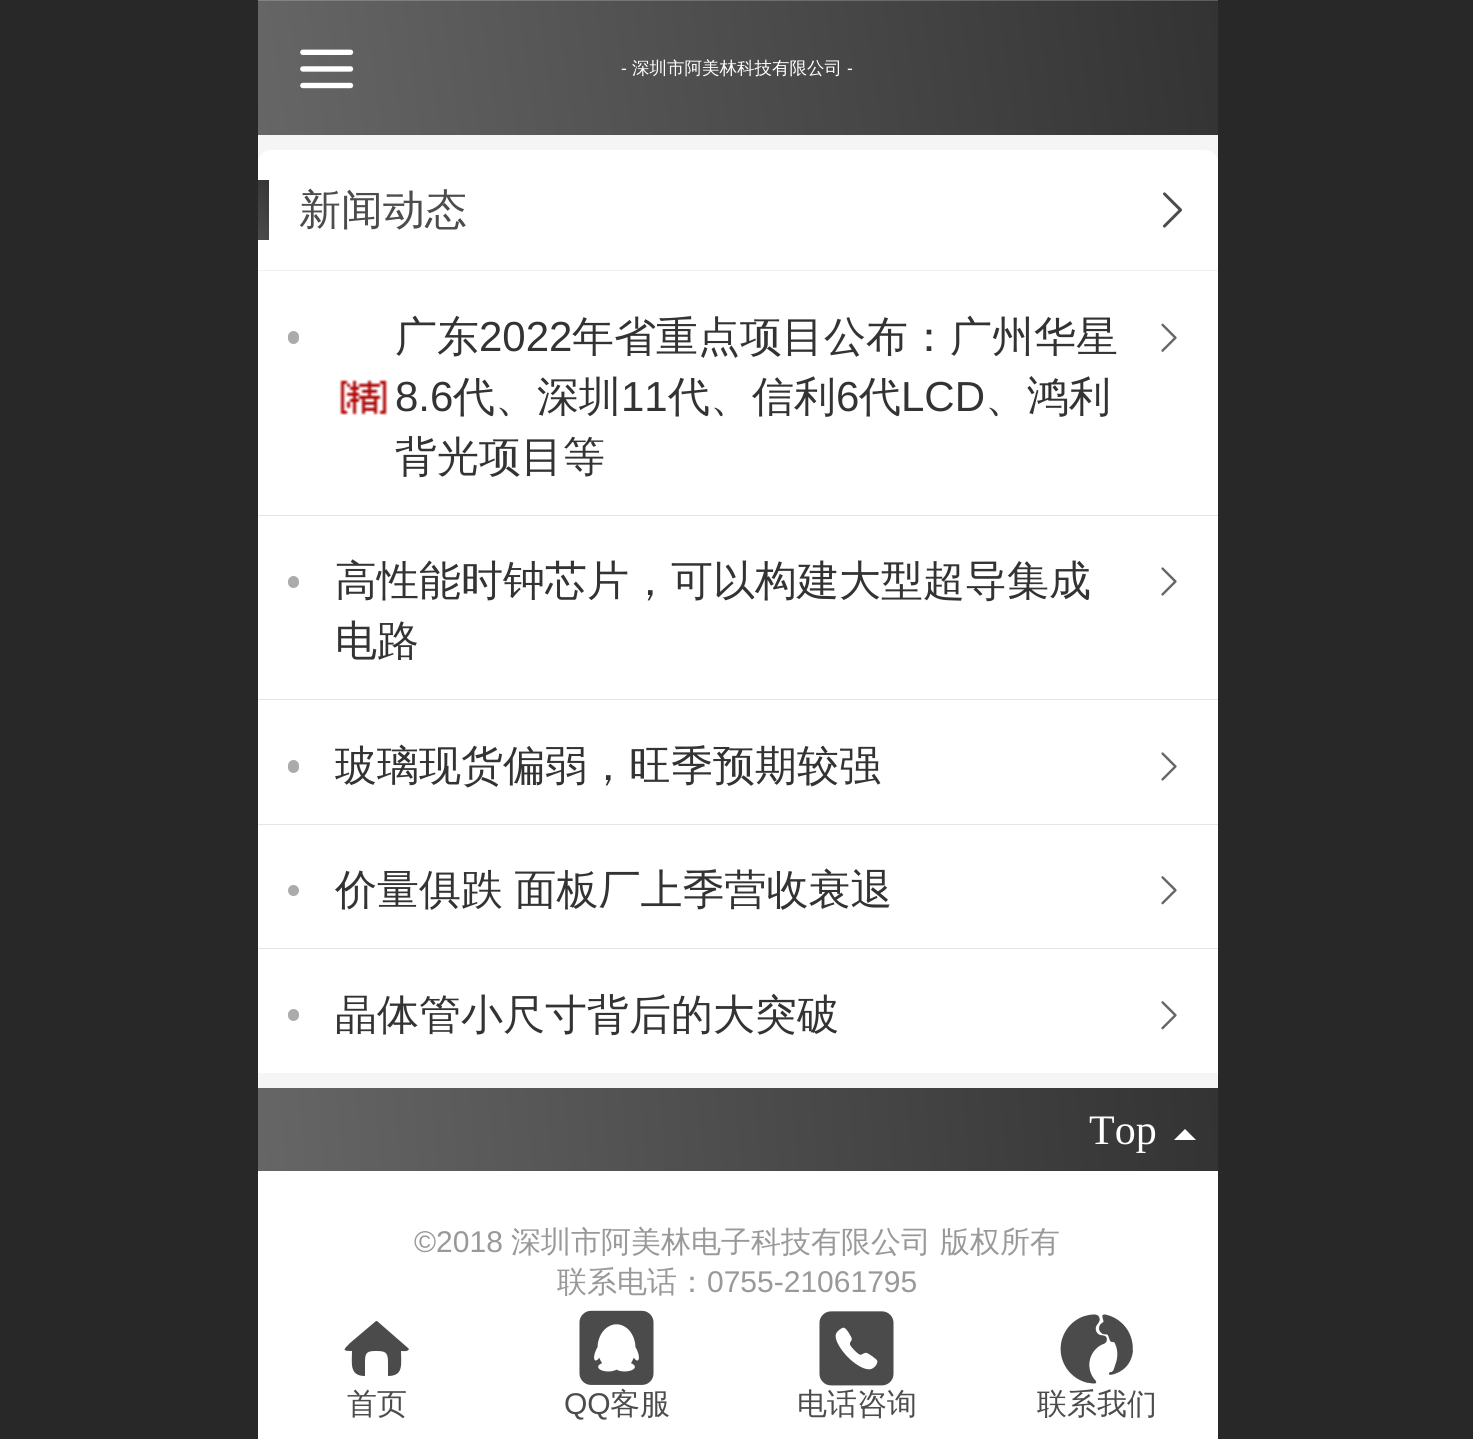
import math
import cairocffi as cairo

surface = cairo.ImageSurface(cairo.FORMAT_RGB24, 1473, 1439)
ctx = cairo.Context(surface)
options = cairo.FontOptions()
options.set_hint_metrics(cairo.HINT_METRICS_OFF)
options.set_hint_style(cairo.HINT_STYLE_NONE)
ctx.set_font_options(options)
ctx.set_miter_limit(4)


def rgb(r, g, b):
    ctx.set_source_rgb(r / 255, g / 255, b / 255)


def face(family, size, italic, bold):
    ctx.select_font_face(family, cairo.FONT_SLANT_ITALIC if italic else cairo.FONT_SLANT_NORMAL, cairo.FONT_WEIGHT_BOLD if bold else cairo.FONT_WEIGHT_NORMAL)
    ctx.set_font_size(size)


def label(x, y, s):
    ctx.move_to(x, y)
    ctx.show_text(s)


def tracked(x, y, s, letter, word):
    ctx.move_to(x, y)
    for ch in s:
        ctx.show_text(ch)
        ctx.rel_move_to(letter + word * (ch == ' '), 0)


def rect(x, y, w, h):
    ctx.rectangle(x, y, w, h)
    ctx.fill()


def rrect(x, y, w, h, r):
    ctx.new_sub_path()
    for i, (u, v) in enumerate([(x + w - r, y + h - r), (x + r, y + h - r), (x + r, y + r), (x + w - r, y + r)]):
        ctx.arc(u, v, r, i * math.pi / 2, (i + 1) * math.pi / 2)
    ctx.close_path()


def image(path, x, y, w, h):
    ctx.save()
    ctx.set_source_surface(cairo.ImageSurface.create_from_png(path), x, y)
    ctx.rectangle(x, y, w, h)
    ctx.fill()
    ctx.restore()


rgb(255, 255, 255)
ctx.paint()
rgb(40, 40, 40)
rect(0, 0, 258, 1439)
gradient = cairo.LinearGradient(258, 135, 1218, 0)
gradient.add_color_stop_rgba(0, 0.4, 0.4, 0.4, 1)
gradient.add_color_stop_rgba(1, 0.2, 0.2, 0.2, 1)
ctx.set_source(gradient)
rect(258, 1, 960, 134)
image('image0.png', 300, 49, 54, 40)
gradient = cairo.LinearGradient(258, 135, 1218, 0)
gradient.add_color_stop_rgba(0, 0.522, 0.522, 0.522, 1)
gradient.add_color_stop_rgba(1, 0.361, 0.361, 0.361, 1)
ctx.set_source(gradient)
rect(258, 0, 960, 1)
face('Liberation Sans', 17.5, 0, 0)
rgb(255, 255, 255)
label(621, 74, '-')
face('WenQuanYi Zen Hei Medium', 17.5, 0, 0)
label(632, 74, '深圳市阿美林科技有限公司')
face('Liberation Sans', 17.5, 0, 0)
label(847, 74, '-')
rgb(245, 245, 245)
rect(258, 135, 960, 953)
rgb(255, 255, 255)
ctx.new_path()
ctx.move_to(271, 150)
ctx.line_to(1205, 150)
ctx.curve_to(1212, 150, 1218, 156, 1218, 163)
ctx.line_to(1218, 271)
ctx.line_to(258, 271)
ctx.line_to(258, 163)
ctx.curve_to(258, 156, 264, 150, 271, 150)
ctx.close_path()
ctx.fill()
rgb(240, 240, 240)
rect(258, 270, 960, 1)
gradient = cairo.LinearGradient(195, 240, 273, 180)
gradient.add_color_stop_rgba(0, 0.4, 0.4, 0.4, 1)
gradient.add_color_stop_rgba(1, 0.2, 0.2, 0.2, 1)
ctx.set_source(gradient)
rect(258, 180, 11, 60)
face('WenQuanYi Zen Hei Medium', 42, 0, 0)
rgb(76, 76, 76)
label(299, 224, '新闻动态')
image('image1.png', 1163, 192, 19, 36)
rgb(255, 255, 255)
rect(258, 271, 960, 802)
rgb(171, 171, 171)
rrect(288, 331, 11, 13, 5.5)
ctx.fill()
image('image2.png', 339, 379, 49, 36)
rgb(51, 51, 51)
label(395, 351, '广东')
face('Liberation Sans', 42, 0, 0)
label(479, 351, '2022')
face('WenQuanYi Zen Hei Medium', 42, 0, 0)
label(572, 351, '年省重点项目公布：广州华星')
face('Liberation Sans', 42, 0, 0)
label(395, 411, '8.6')
face('WenQuanYi Zen Hei Medium', 42, 0, 0)
label(453, 411, '代、深圳')
face('Liberation Sans', 42, 0, 0)
label(621, 411, '11')
face('WenQuanYi Zen Hei Medium', 42, 0, 0)
label(668, 411, '代、信利')
face('Liberation Sans', 42, 0, 0)
label(836, 411, '6')
face('WenQuanYi Zen Hei Medium', 42, 0, 0)
label(859, 411, '代')
face('Liberation Sans', 42, 0, 0)
label(901, 411, 'LCD')
face('WenQuanYi Zen Hei Medium', 42, 0, 0)
label(985, 411, '、鸿利')
label(395, 471, '背光项目等')
image('image3.png', 1161, 323, 16, 29)
rgb(229, 229, 229)
rect(258, 515, 960, 1)
rgb(171, 171, 171)
rrect(288, 576, 11, 12, 5.5)
ctx.fill()
rgb(51, 51, 51)
label(335, 595, '高性能时钟芯片，可以构建大型超导集成')
label(335, 655, '电路')
image('image4.png', 1161, 567, 16, 29)
rgb(229, 229, 229)
rect(258, 699, 960, 1)
rgb(171, 171, 171)
rrect(288, 760, 11, 13, 5.5)
ctx.fill()
rgb(51, 51, 51)
label(335, 780, '玻璃现货偏弱，旺季预期较强')
image('image4.png', 1161, 752, 16, 29)
rgb(229, 229, 229)
rect(258, 824, 960, 1)
rgb(171, 171, 171)
ctx.arc(293.5, 890.5, 5.5, 0, 2 * math.pi)
ctx.fill()
rgb(51, 51, 51)
tracked(335, 904, '价量俱跌 面板厂上季营收衰退', 0, -1)
image('image5.png', 1161, 876, 16, 29)
rgb(229, 229, 229)
rect(258, 948, 960, 1)
rgb(171, 171, 171)
rrect(288, 1009, 11, 12, 5.5)
ctx.fill()
rgb(51, 51, 51)
label(335, 1029, '晶体管小尺寸背后的大突破')
image('image5.png', 1161, 1001, 16, 29)
gradient = cairo.LinearGradient(258, 1171, 1218, 1088)
gradient.add_color_stop_rgba(0, 0.4, 0.4, 0.4, 1)
gradient.add_color_stop_rgba(1, 0.2, 0.2, 0.2, 1)
ctx.set_source(gradient)
rect(258, 1088, 960, 83)
face('Liberation Serif', 42, 0, 0)
rgb(255, 255, 255)
label(1089, 1144, 'Top')
ctx.new_path()
ctx.move_to(1196, 1140)
ctx.line_to(1174, 1140)
ctx.line_to(1185, 1129)
ctx.close_path()
ctx.fill()
face('Liberation Sans', 30, 0, 0)
rgb(153, 153, 153)
label(414, 1252, '©2018')
face('WenQuanYi Zen Hei Medium', 30, 0, 0)
label(511, 1252, '深圳市阿美林电子科技有限公司 版权所有')
label(557, 1292, '联系电话：')
face('Liberation Sans', 30, 0, 0)
label(707, 1292, '0755-21061795')
rgb(75, 75, 75)
ctx.new_path()
ctx.move_to(408, 1348)
ctx.line_to(377, 1321)
ctx.line_to(376, 1321)
ctx.line_to(350, 1343)
ctx.curve_to(343, 1350, 342, 1351, 352, 1351)
ctx.curve_to(352, 1363, 349, 1376, 365, 1376)
ctx.line_to(365, 1361)
ctx.curve_to(365, 1352, 368, 1351, 376, 1351)
ctx.curve_to(385, 1351, 388, 1352, 388, 1362)
ctx.line_to(388, 1376)
ctx.curve_to(404, 1376, 401, 1364, 401, 1351)
ctx.curve_to(403, 1351, 408, 1352, 409, 1349)
ctx.close_path()
ctx.fill()
face('WenQuanYi Zen Hei Medium', 30, 0, 0)
rgb(76, 76, 76)
label(347, 1414, '首页')
image('image6.png', 579, 1310, 75, 75)
face('Liberation Sans', 30, 0, 0)
label(564, 1414, 'QQ')
face('WenQuanYi Zen Hei Medium', 30, 0, 0)
label(610, 1414, '客服')
image('image7.png', 819, 1311, 75, 75)
label(797, 1414, '电话咨询')
image('image8.png', 1060, 1314, 73, 70)
label(1037, 1414, '联系我们')
rgb(40, 40, 40)
rect(1218, 0, 255, 1439)
surface.write_to_png('render.png')
